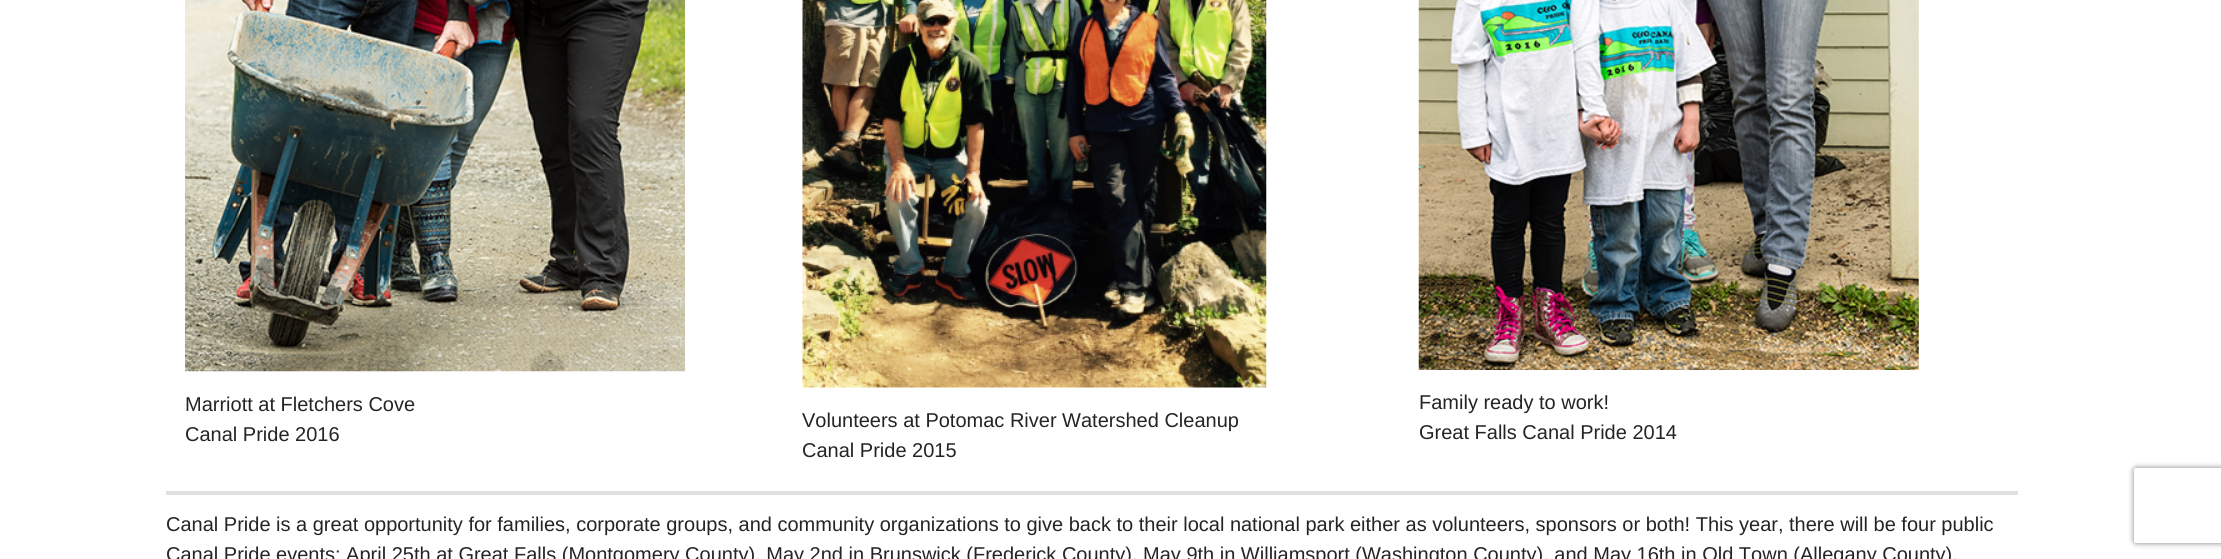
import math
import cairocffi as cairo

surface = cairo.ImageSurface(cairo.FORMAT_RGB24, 2221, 559)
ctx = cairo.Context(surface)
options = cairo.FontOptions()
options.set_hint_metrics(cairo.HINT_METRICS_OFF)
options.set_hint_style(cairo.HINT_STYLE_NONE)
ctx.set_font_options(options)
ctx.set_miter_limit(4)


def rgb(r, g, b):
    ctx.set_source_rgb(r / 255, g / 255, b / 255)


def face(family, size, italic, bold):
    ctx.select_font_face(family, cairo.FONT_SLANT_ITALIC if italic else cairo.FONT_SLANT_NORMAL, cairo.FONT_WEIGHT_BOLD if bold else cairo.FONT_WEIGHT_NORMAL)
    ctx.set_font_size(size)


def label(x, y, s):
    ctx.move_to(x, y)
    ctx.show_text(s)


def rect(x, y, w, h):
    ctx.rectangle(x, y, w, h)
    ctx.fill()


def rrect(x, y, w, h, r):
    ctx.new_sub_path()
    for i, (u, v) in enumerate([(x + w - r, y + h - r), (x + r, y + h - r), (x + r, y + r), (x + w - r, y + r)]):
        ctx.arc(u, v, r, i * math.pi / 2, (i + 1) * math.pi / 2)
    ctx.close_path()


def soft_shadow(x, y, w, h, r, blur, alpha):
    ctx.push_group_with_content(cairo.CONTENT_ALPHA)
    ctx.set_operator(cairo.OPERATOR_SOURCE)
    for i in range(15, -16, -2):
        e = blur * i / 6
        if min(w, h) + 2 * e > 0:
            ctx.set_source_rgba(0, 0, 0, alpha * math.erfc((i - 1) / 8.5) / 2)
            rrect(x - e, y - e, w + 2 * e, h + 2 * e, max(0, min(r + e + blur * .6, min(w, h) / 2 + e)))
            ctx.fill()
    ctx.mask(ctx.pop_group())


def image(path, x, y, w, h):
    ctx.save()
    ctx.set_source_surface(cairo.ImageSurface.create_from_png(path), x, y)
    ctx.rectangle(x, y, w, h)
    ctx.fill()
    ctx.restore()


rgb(255, 255, 255)
ctx.paint()
image('image0.png', 185, 0, 500, 372)
face('Liberation Sans', 20, 0, 0)
rgb(36, 36, 36)
label(185, 411, 'Marriott at Fletchers Cove')
label(185, 441, 'Canal Pride 2016')
image('image1.png', 802, 0, 465, 388)
label(802, 427, 'Volunteers at Potomac River Watershed Cleanup')
label(802, 457, 'Canal Pride 2015')
image('image2.png', 1418, 0, 501, 370)
label(1419, 409, 'Family ready to work!')
label(1419, 439, 'Great Falls Canal Pride 2014')
rgb(224, 224, 224)
rect(166, 491, 1852, 4)
rgb(36, 36, 36)
label(166, 531, 'Canal Pride is a great opportunity for families, corporate groups, and community organizations to give back to their local national park either as volunteers, sponsors or both! This year, there will be four public')
label(166, 561, 'Canal Pride events: April 25th at Great Falls (Montgomery County), May 2nd in Brunswick (Frederick County), May 9th in Williamsport (Washington County), and May 16th in Old Town (Allegany County).')
ctx.save()
ctx.set_fill_rule(cairo.FILL_RULE_EVEN_ODD)
ctx.new_path()
ctx.move_to(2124, 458)
ctx.line_to(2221, 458)
ctx.line_to(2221, 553)
ctx.line_to(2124, 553)
ctx.close_path()
ctx.move_to(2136.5, 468)
ctx.line_to(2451.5, 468)
ctx.curve_to(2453, 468, 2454, 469, 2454, 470.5)
ctx.line_to(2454, 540.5)
ctx.curve_to(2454, 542, 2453, 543, 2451.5, 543)
ctx.line_to(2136.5, 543)
ctx.curve_to(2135, 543, 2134, 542, 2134, 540.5)
ctx.line_to(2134, 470.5)
ctx.curve_to(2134, 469, 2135, 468, 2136.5, 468)
ctx.close_path()
ctx.clip()
rgb(128, 128, 128)
soft_shadow(2134, 468, 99, 75, 2.5, 3, 1)
ctx.restore()
surface.write_to_png('render.png')
